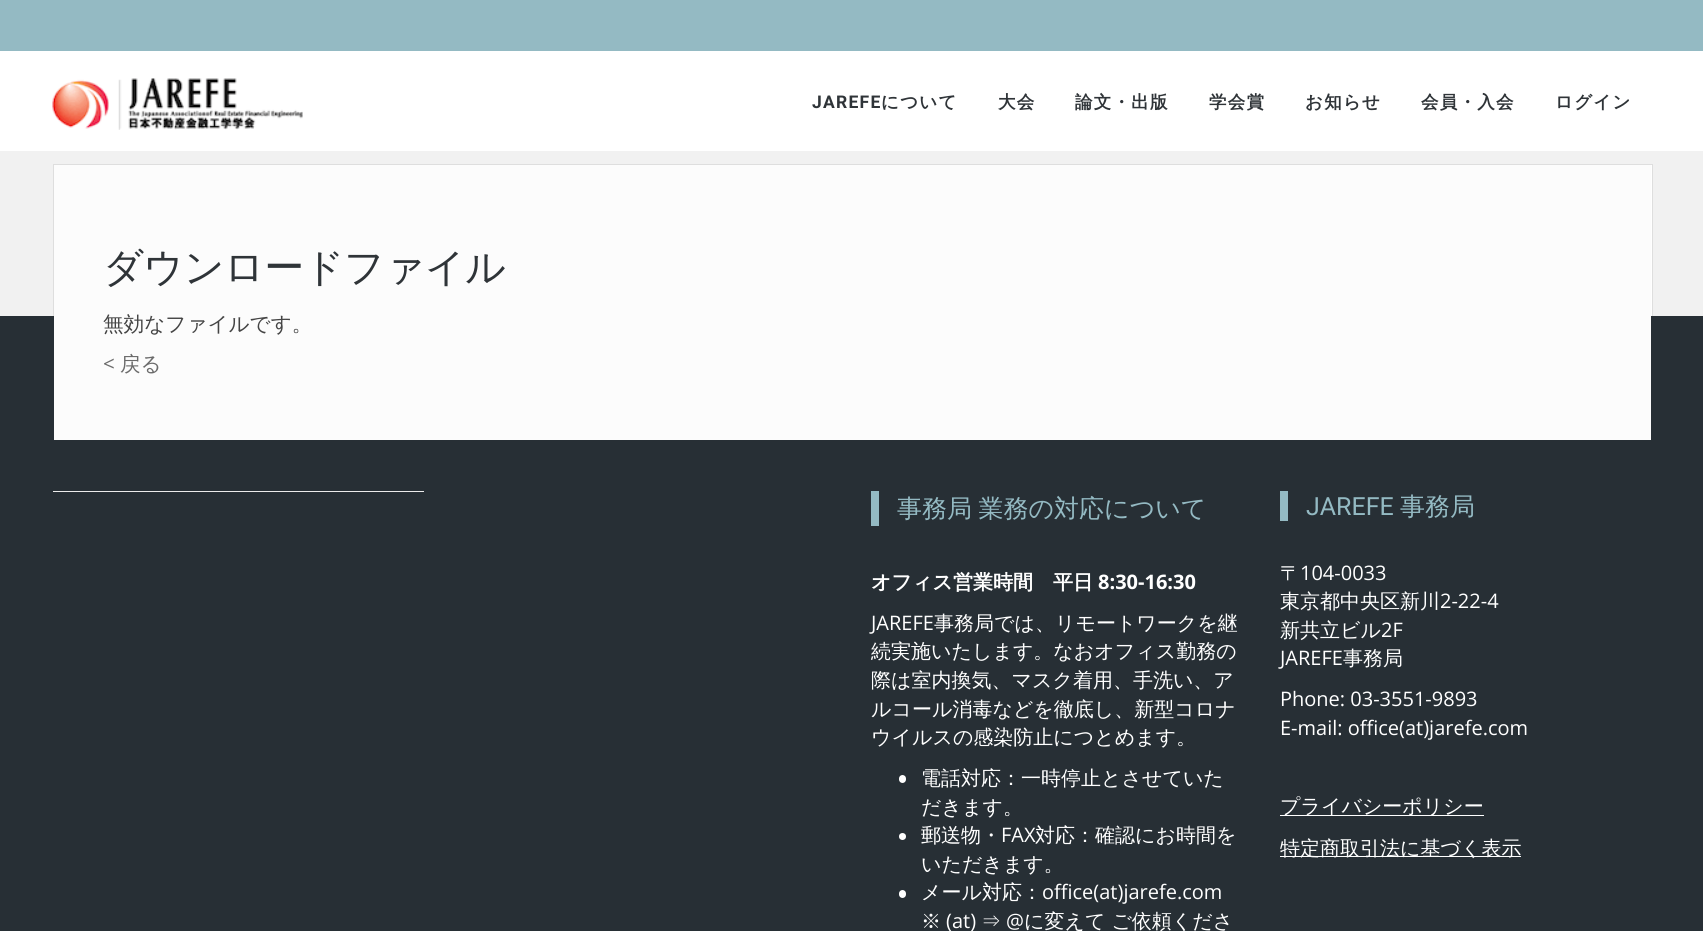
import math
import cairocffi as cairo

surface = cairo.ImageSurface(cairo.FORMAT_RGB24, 1703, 931)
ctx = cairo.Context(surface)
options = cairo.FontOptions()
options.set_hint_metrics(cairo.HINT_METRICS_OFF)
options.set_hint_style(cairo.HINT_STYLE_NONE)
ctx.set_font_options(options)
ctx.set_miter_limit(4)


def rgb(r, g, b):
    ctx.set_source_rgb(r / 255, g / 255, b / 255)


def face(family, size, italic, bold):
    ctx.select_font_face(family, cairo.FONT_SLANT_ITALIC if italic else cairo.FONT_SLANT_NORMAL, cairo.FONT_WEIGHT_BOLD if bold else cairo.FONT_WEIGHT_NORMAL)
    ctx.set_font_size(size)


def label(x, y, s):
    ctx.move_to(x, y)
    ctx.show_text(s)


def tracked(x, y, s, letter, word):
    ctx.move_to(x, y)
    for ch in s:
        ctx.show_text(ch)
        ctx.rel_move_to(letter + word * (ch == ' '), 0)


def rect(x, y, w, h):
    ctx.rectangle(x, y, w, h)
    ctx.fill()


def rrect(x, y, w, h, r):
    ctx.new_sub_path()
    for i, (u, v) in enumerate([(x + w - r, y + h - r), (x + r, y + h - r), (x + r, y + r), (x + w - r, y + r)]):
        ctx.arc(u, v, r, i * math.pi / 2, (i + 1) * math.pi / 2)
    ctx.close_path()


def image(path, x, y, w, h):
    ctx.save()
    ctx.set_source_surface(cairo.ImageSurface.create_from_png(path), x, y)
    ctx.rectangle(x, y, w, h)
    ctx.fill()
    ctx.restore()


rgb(241, 241, 241)
ctx.paint()
rgb(148, 186, 195)
rect(0, 0, 1703, 51)
rgb(255, 255, 255)
rect(0, 51, 1703, 100)
image('image0.png', 52, 78, 251, 52)
face('Roboto', 17.5, 0, 1)
rgb(47, 52, 56)
tracked(812, 108, 'JAREFE', 1.25, 0)
face('WenQuanYi Zen Hei', 17.5, 0, 1)
tracked(881, 108, 'について', 1.25, 0)
tracked(998, 108, '大会', 1.25, 0)
tracked(1075, 108, '論文・出版', 1.25, 0)
tracked(1209, 108, '学会賞', 1.25, 0)
tracked(1305, 108, 'お知らせ', 1.25, 0)
tracked(1421, 108, '会員・入会', 1.25, 0)
tracked(1555, 108, 'ログイン', 1.25, 0)
rgb(255, 255, 255)
rect(1651, 165, 1, 151)
ctx.rectangle(53.5, 164.5, 1599, 276)
rgb(222, 222, 222)
ctx.set_line_width(1)
ctx.stroke()
rgb(39, 47, 53)
rect(0, 316, 1703, 615)
rgb(252, 252, 252)
rect(54, 165, 1597, 275)
face('WenQuanYi Zen Hei Medium', 40, 0, 0)
rgb(47, 52, 56)
tracked(103, 281, 'ダウンロードファイル', -0.6, 0)
face('WenQuanYi Zen Hei Medium', 20.6, 0, 0)
rgb(68, 68, 68)
label(103, 331, '無効なファイルです。')
face('Open Sans', 20.6, 0, 0)
rgb(107, 107, 107)
label(103, 371, '<')
face('WenQuanYi Zen Hei Medium', 20.6, 0, 0)
label(120, 371, '戻る')
rgb(236, 236, 236)
rect(53, 491, 371, 1)
rgb(148, 186, 195)
rect(871, 491, 8, 35)
face('WenQuanYi Zen Hei Medium', 25, 0, 0)
tracked(897, 517, '事務局 業務の対応について', 0, -1)
face('WenQuanYi Zen Hei', 20, 0, 1)
rgb(255, 255, 255)
label(871, 589, 'オフィス営業時間　平日')
face('Open Sans', 20, 0, 1)
label(1098, 589, '8:30-16:30')
face('Open Sans', 20, 0, 0)
label(871, 630, 'JAREFE')
face('WenQuanYi Zen Hei Medium', 20, 0, 0)
label(934, 630, '事務局では、リモートワークを継')
label(871, 658, '続実施いたします。なおオフィス勤務の')
label(871, 687, '際は室内換気、マスク着用、手洗い、ア')
label(871, 716, 'ルコール消毒などを徹底し、新型コロナ')
label(871, 744, 'ウイルスの感染防止につとめます。')
rrect(899, 775, 7, 8, 3.5)
ctx.fill()
label(921, 785, '電話対応：一時停止とさせていた')
label(921, 814, 'だきます。')
ctx.new_path()
ctx.arc(902.5, 836.5, 3.5, 0, 2 * math.pi)
ctx.fill()
label(921, 842, '郵送物・')
face('Open Sans', 20, 0, 0)
label(1001, 842, 'FAX')
face('WenQuanYi Zen Hei Medium', 20, 0, 0)
label(1035, 842, '対応：確認にお時間を')
label(921, 871, 'いただきます。')
rrect(899, 890, 7, 8, 3.5)
ctx.fill()
label(921, 899, 'メール対応：')
face('Open Sans', 20, 0, 0)
label(1042, 899, 'office(at)jarefe.com')
face('WenQuanYi Zen Hei Medium', 20, 0, 0)
label(921, 928, '※')
face('Open Sans', 20, 0, 0)
label(946, 928, '(at)')
face('WenQuanYi Zen Hei Medium', 20, 0, 0)
label(981, 928, '⇒')
face('Open Sans', 20, 0, 0)
label(1006, 928, '@')
face('WenQuanYi Zen Hei Medium', 20, 0, 0)
label(1024, 928, 'に変えて ご依頼くださ')
rgb(148, 186, 195)
rect(1280, 491, 8, 30)
face('Roboto', 25, 0, 0)
label(1306, 515, 'JAREFE')
face('WenQuanYi Zen Hei Medium', 25, 0, 0)
label(1400, 515, '事務局')
face('WenQuanYi Zen Hei Medium', 20, 0, 0)
rgb(255, 255, 255)
label(1280, 580, '〒')
face('Open Sans', 20, 0, 0)
label(1300, 580, '104-0033')
face('WenQuanYi Zen Hei Medium', 20, 0, 0)
label(1280, 608, '東京都中央区新川')
face('Open Sans', 20, 0, 0)
label(1440, 608, '2-22-4')
face('WenQuanYi Zen Hei Medium', 20, 0, 0)
label(1280, 637, '新共立ビル')
face('Open Sans', 20, 0, 0)
label(1381, 637, '2F')
label(1280, 665, 'JAREFE')
face('WenQuanYi Zen Hei Medium', 20, 0, 0)
label(1343, 665, '事務局')
face('Open Sans', 20, 0, 0)
label(1280, 706, 'Phone: 03-3551-9893')
label(1280, 735, 'E-mail: office(at)jarefe.com')
rect(1280, 815, 204, 1)
face('WenQuanYi Zen Hei Medium', 20, 0, 0)
label(1280, 813, 'プライバシーポリシー')
rect(1280, 856, 241, 1)
label(1280, 855, '特定商取引法に基づく表示')
surface.write_to_png('render.png')
